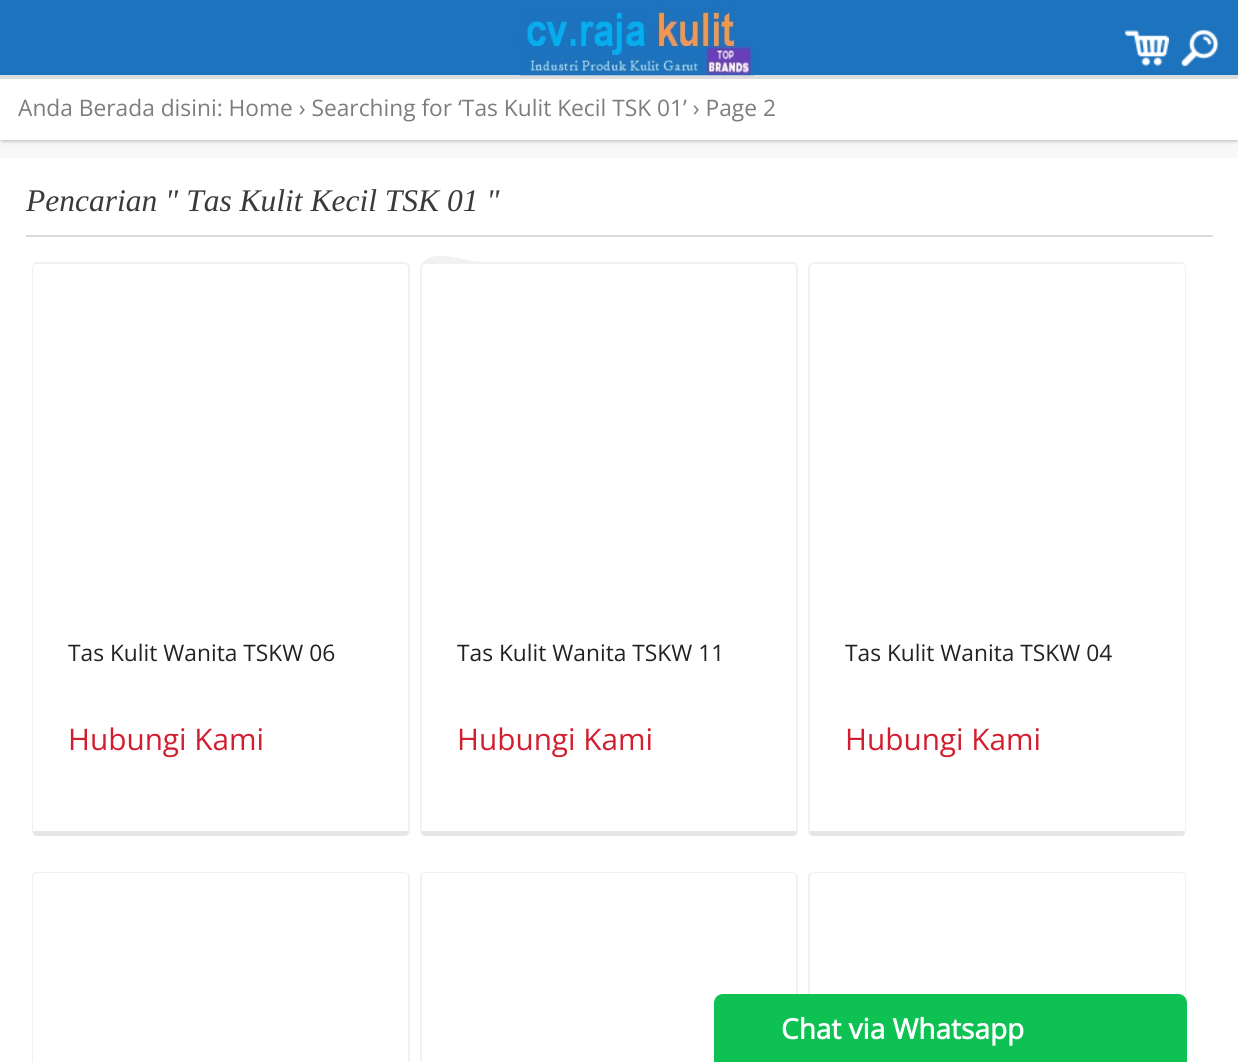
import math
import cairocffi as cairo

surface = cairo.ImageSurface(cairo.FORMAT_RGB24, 1238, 1062)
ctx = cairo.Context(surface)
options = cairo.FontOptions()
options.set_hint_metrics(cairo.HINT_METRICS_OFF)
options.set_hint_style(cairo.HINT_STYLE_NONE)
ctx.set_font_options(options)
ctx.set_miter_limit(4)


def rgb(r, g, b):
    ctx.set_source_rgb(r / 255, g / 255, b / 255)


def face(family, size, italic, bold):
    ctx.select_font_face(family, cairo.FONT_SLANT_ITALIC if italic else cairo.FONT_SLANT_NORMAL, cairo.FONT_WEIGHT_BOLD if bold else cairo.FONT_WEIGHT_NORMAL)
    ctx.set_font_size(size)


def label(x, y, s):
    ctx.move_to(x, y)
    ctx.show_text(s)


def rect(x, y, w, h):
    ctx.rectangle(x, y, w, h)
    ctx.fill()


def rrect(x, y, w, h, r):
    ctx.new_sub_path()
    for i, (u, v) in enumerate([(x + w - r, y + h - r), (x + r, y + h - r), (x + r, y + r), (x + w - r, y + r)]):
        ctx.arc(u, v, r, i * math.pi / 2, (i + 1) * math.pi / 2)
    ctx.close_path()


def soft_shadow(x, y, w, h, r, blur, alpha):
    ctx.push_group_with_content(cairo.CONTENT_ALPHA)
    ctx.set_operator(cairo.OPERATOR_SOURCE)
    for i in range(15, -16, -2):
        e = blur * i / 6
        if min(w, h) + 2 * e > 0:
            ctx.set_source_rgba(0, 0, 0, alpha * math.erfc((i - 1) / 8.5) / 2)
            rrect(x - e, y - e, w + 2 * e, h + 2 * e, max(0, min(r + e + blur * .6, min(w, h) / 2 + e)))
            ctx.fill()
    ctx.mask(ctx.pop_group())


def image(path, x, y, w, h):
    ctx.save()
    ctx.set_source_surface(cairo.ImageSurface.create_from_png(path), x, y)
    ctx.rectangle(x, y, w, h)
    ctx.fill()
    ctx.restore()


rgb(248, 248, 248)
ctx.paint()
rgb(0, 0, 0)
soft_shadow(2, 77, 1235, 63, 0, 2.5, 0.4)
rgb(30, 115, 190)
rect(0, 0, 1238, 75)
rgb(221, 221, 221)
rect(0, 75, 1238, 4)
image('image0.png', 519, 7, 236, 69)
image('image1.png', 1125, 30, 44, 37)
image('image2.png', 1181, 29, 38, 38)
rgb(255, 255, 255)
rect(0, 79, 1238, 61)
face('Open Sans', 22.75, 0, 0)
rgb(125, 125, 125)
label(18, 116, 'Anda Berada disini: Home › Searching for ‘Tas Kulit Kecil TSK 01’ › Page 2')
rgb(255, 255, 255)
rect(0, 158, 1238, 904)
rgb(219, 219, 219)
rect(26, 235, 1187, 2)
face('Liberation Serif', 31.5, 1, 0)
rgb(58, 58, 58)
label(26, 211, 'Pencarian " Tas Kulit Kecil TSK 01 "')
rgb(241, 241, 241)
ctx.new_path()
ctx.move_to(37, 264)
ctx.line_to(34, 265)
ctx.line_to(33, 264)
ctx.line_to(35, 262)
ctx.line_to(406, 262)
ctx.line_to(408, 264)
ctx.line_to(407, 265)
ctx.line_to(404, 264)
ctx.close_path()
ctx.fill()
ctx.new_path()
ctx.move_to(410, 833)
ctx.line_to(409, 834)
ctx.line_to(408, 831)
ctx.line_to(408, 268)
ctx.line_to(407, 265)
ctx.line_to(408, 264)
ctx.line_to(410, 266)
ctx.close_path()
ctx.fill()
rgb(230, 230, 230)
ctx.new_path()
ctx.move_to(409, 834)
ctx.curve_to(408, 835, 406, 836, 404, 836)
ctx.line_to(37, 836)
ctx.curve_to(35, 836, 33, 835, 33, 833)
ctx.line_to(33, 831)
ctx.line_to(408, 831)
ctx.close_path()
ctx.fill()
rgb(241, 241, 241)
ctx.new_path()
ctx.move_to(33, 833)
ctx.line_to(32, 831)
ctx.line_to(32, 268)
ctx.line_to(33, 264)
ctx.line_to(34, 265)
ctx.line_to(33, 268)
ctx.line_to(33, 831)
ctx.close_path()
ctx.fill()
face('Open Sans', 22.75, 0, 0)
rgb(33, 34, 38)
label(68, 661, 'Tas Kulit Wanita TSKW 06')
face('Open Sans', 29.75, 0, 0)
rgb(210, 31, 48)
label(68, 750, 'Hubungi Kami')
rgb(241, 241, 241)
ctx.new_path()
ctx.move_to(425, 264)
ctx.line_to(423, 265)
ctx.line_to(421, 264)
ctx.curve_to(435, 247, 464, 262, 485, 262)
ctx.line_to(795, 262)
ctx.line_to(797, 264)
ctx.line_to(795, 265)
ctx.line_to(793, 264)
ctx.close_path()
ctx.fill()
ctx.new_path()
ctx.move_to(798, 831)
ctx.line_to(798, 267)
ctx.line_to(797, 264)
ctx.line_to(795, 265)
ctx.line_to(796, 268)
ctx.line_to(796, 830)
ctx.line_to(797, 834)
ctx.close_path()
ctx.fill()
rgb(230, 230, 230)
ctx.new_path()
ctx.move_to(797, 834)
ctx.curve_to(796, 835, 795, 836, 793, 836)
ctx.line_to(424, 836)
ctx.line_to(421, 834)
ctx.line_to(422, 830)
ctx.line_to(422, 831)
ctx.line_to(796, 831)
ctx.line_to(796, 830)
ctx.close_path()
ctx.fill()
rgb(241, 241, 241)
ctx.new_path()
ctx.move_to(420, 268)
ctx.line_to(420, 831)
ctx.line_to(421, 834)
ctx.line_to(422, 830)
ctx.line_to(422, 268)
ctx.line_to(423, 265)
ctx.line_to(421, 264)
ctx.curve_to(420, 265, 420, 266, 420, 268)
ctx.close_path()
ctx.fill()
face('Open Sans', 22.75, 0, 0)
rgb(33, 34, 38)
label(457, 661, 'Tas Kulit Wanita TSKW 11')
face('Open Sans', 29.75, 0, 0)
rgb(210, 31, 48)
label(457, 750, 'Hubungi Kami')
rgb(241, 241, 241)
ctx.new_path()
ctx.move_to(814, 264)
ctx.line_to(811, 265)
ctx.line_to(810, 264)
ctx.line_to(812, 262)
ctx.line_to(1183, 262)
ctx.line_to(1185, 264)
ctx.line_to(1184, 265)
ctx.line_to(1181, 264)
ctx.close_path()
ctx.fill()
ctx.new_path()
ctx.move_to(1185, 264)
ctx.line_to(1186, 268)
ctx.line_to(1186, 831)
ctx.line_to(1185, 833)
ctx.line_to(1185, 831)
ctx.line_to(1185, 268)
ctx.line_to(1184, 265)
ctx.close_path()
ctx.fill()
rgb(230, 230, 230)
ctx.new_path()
ctx.move_to(1185, 833)
ctx.curve_to(1185, 835, 1183, 836, 1181, 836)
ctx.line_to(814, 836)
ctx.curve_to(812, 836, 810, 835, 809, 834)
ctx.line_to(810, 831)
ctx.line_to(1185, 831)
ctx.close_path()
ctx.fill()
rgb(241, 241, 241)
ctx.new_path()
ctx.move_to(808, 266)
ctx.line_to(810, 264)
ctx.line_to(811, 265)
ctx.line_to(810, 268)
ctx.line_to(810, 831)
ctx.line_to(809, 834)
ctx.line_to(808, 833)
ctx.close_path()
ctx.fill()
face('Open Sans', 22.75, 0, 0)
rgb(33, 34, 38)
label(845, 661, 'Tas Kulit Wanita TSKW 04')
face('Open Sans', 29.75, 0, 0)
rgb(210, 31, 48)
label(845, 750, 'Hubungi Kami')
rgb(241, 241, 241)
ctx.new_path()
ctx.move_to(37, 872)
ctx.curve_to(36, 872, 34, 872, 33, 873)
ctx.line_to(34, 874)
ctx.line_to(37, 873)
ctx.line_to(404, 873)
ctx.line_to(407, 874)
ctx.line_to(408, 873)
ctx.line_to(404, 872)
ctx.close_path()
ctx.fill()
ctx.new_path()
ctx.move_to(408, 873)
ctx.line_to(410, 875)
ctx.line_to(410, 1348)
ctx.curve_to(410, 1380, 428, 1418, 409, 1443)
ctx.line_to(408, 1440)
ctx.line_to(408, 877)
ctx.line_to(407, 874)
ctx.close_path()
ctx.fill()
ctx.new_path()
ctx.move_to(33, 873)
ctx.curve_to(32, 874, 32, 876, 32, 877)
ctx.line_to(32, 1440)
ctx.line_to(32, 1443)
ctx.line_to(33, 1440)
ctx.line_to(33, 877)
ctx.line_to(34, 874)
ctx.close_path()
ctx.fill()
ctx.new_path()
ctx.move_to(425, 872)
ctx.line_to(422, 873)
ctx.line_to(423, 874)
ctx.line_to(424, 873)
ctx.line_to(793, 873)
ctx.line_to(795, 874)
ctx.line_to(796, 873)
ctx.line_to(793, 872)
ctx.close_path()
ctx.fill()
ctx.new_path()
ctx.move_to(798, 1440)
ctx.line_to(798, 877)
ctx.curve_to(798, 875, 797, 874, 796, 873)
ctx.line_to(795, 874)
ctx.line_to(796, 877)
ctx.line_to(796, 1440)
ctx.line_to(797, 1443)
ctx.close_path()
ctx.fill()
ctx.new_path()
ctx.move_to(420, 877)
ctx.line_to(420, 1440)
ctx.line_to(421, 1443)
ctx.line_to(422, 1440)
ctx.line_to(422, 877)
ctx.line_to(423, 874)
ctx.line_to(422, 873)
ctx.curve_to(421, 874, 420, 875, 420, 877)
ctx.close_path()
ctx.fill()
ctx.new_path()
ctx.move_to(814, 872)
ctx.line_to(810, 873)
ctx.line_to(811, 874)
ctx.line_to(814, 873)
ctx.line_to(1181, 873)
ctx.line_to(1184, 874)
ctx.line_to(1185, 873)
ctx.curve_to(1184, 872, 1182, 872, 1181, 872)
ctx.close_path()
ctx.fill()
ctx.new_path()
ctx.move_to(1186, 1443)
ctx.line_to(1186, 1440)
ctx.line_to(1186, 877)
ctx.curve_to(1186, 876, 1186, 874, 1185, 873)
ctx.line_to(1184, 874)
ctx.line_to(1185, 877)
ctx.line_to(1185, 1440)
ctx.close_path()
ctx.fill()
ctx.new_path()
ctx.move_to(808, 875)
ctx.line_to(810, 873)
ctx.line_to(811, 874)
ctx.line_to(810, 877)
ctx.line_to(810, 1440)
ctx.line_to(809, 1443)
ctx.line_to(808, 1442)
ctx.close_path()
ctx.fill()
ctx.new_path()
ctx.move_to(723, 995)
ctx.line_to(1178, 995)
ctx.curve_to(1182.5, 995, 1186, 998.5, 1186, 1003)
ctx.line_to(1186, 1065)
ctx.line_to(715, 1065)
ctx.line_to(715, 1003)
ctx.curve_to(715, 998.5, 718.5, 995, 723, 995)
ctx.close_path()
rgb(13, 193, 82)
ctx.stroke()
ctx.new_path()
ctx.move_to(721, 996)
ctx.line_to(1180, 996)
ctx.curve_to(1183, 996, 1185, 998, 1185, 1001)
ctx.line_to(1185, 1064)
ctx.line_to(716, 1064)
ctx.line_to(716, 1001)
ctx.curve_to(716, 998, 718, 996, 721, 996)
ctx.close_path()
ctx.fill()
face('Open Sans', 28, 0, 1)
rgb(255, 255, 255)
label(781, 1039, 'Chat via Whatsapp')
surface.write_to_png('render.png')
